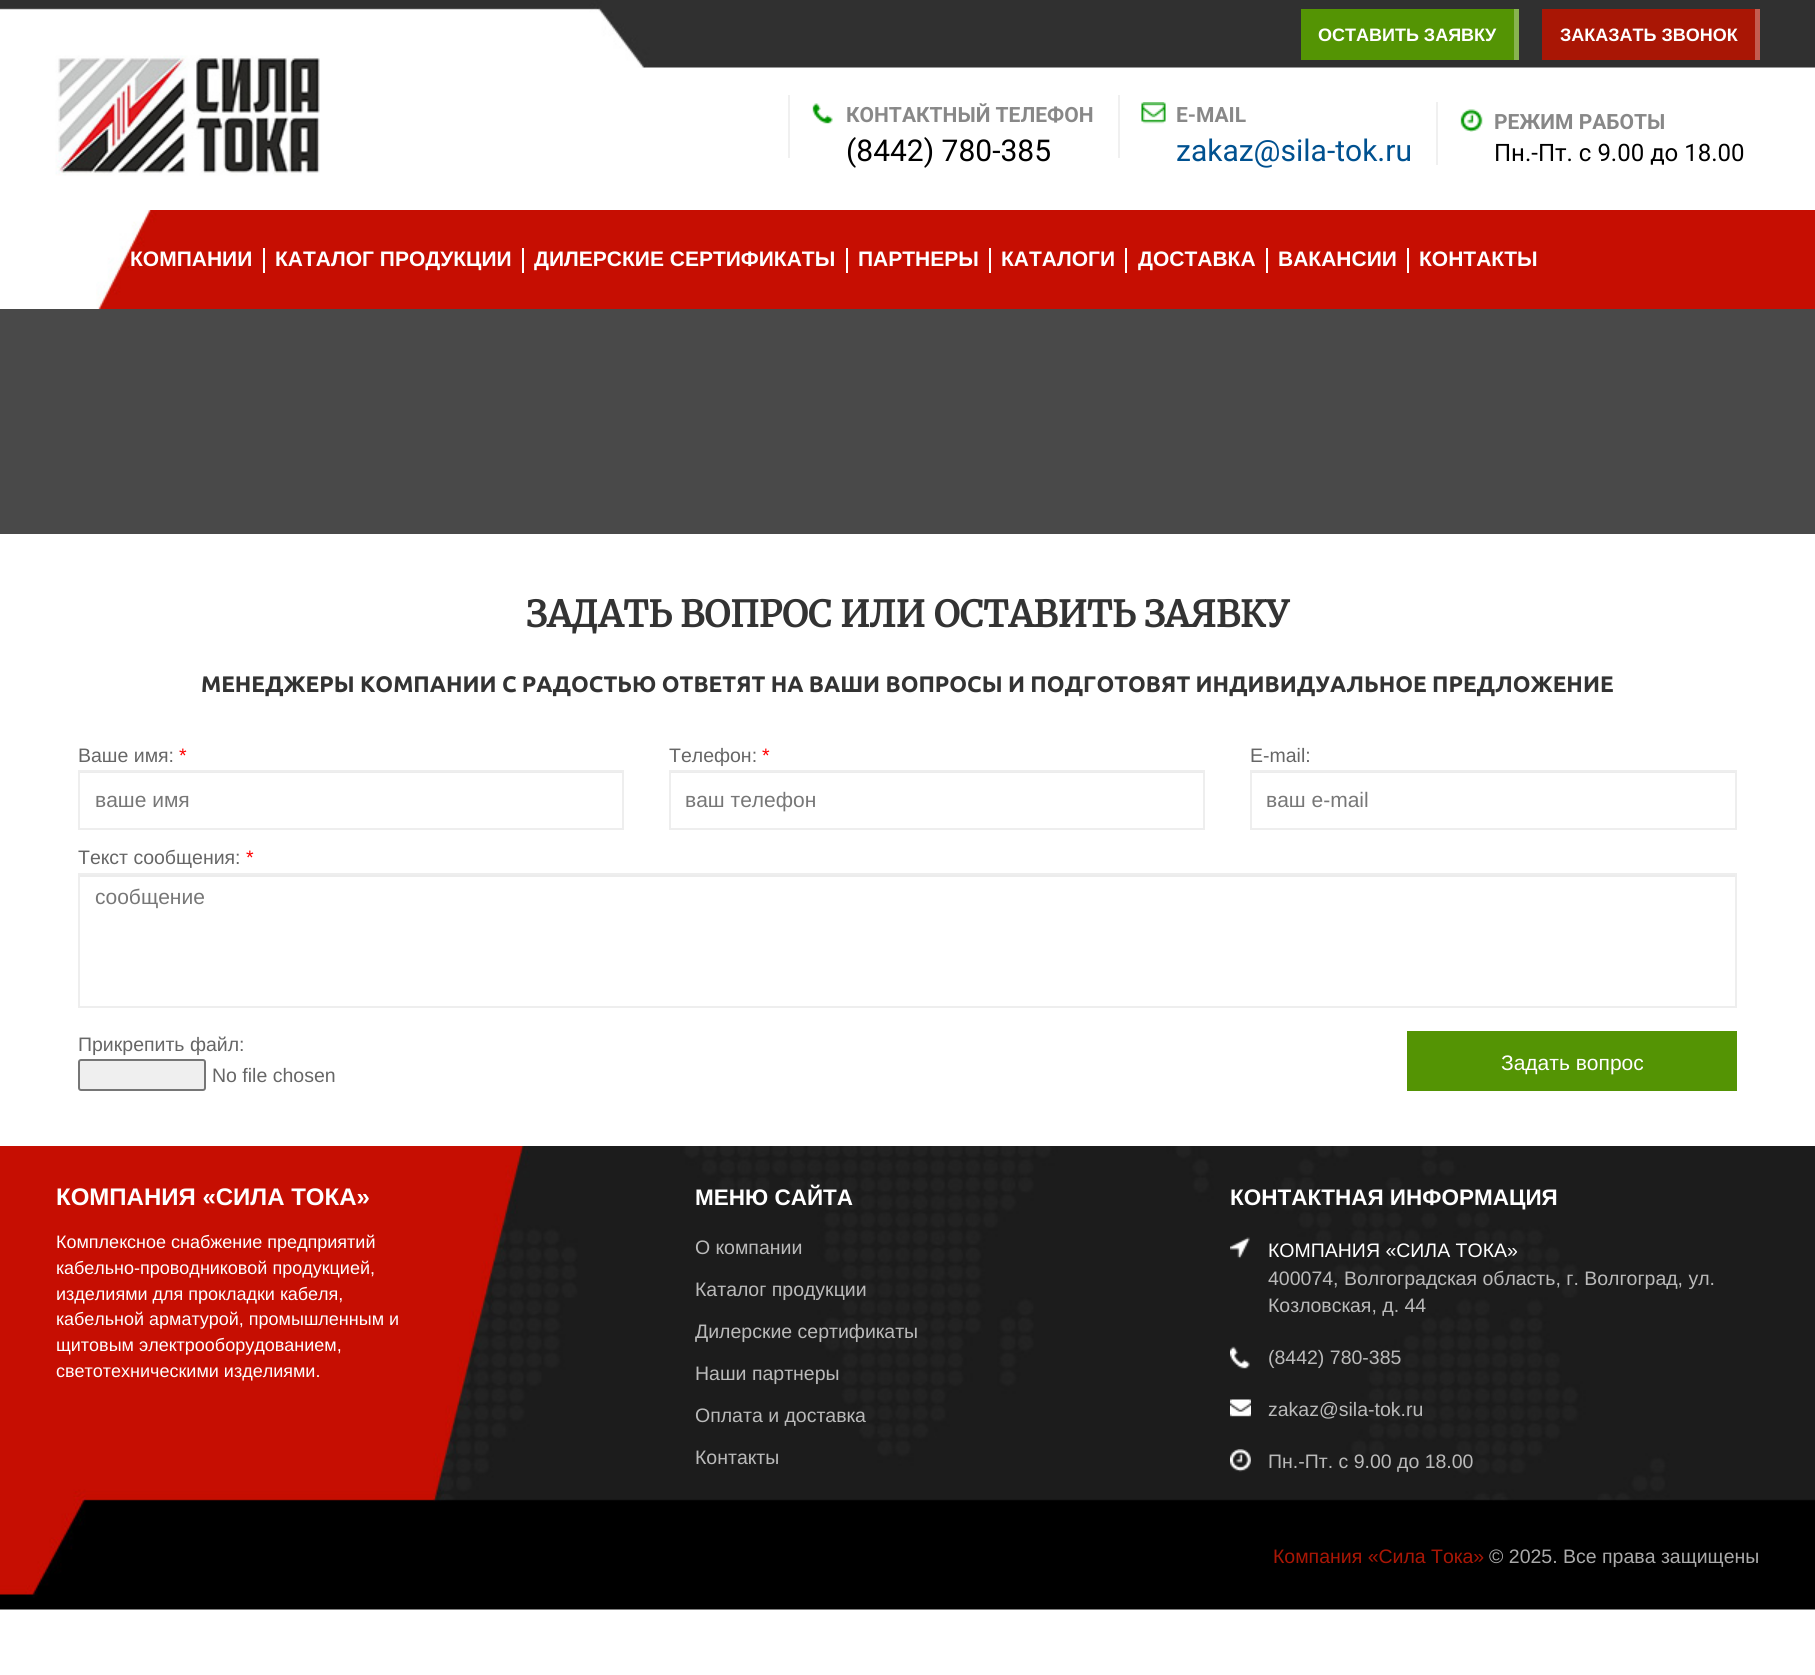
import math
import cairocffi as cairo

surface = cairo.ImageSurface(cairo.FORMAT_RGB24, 1815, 1675)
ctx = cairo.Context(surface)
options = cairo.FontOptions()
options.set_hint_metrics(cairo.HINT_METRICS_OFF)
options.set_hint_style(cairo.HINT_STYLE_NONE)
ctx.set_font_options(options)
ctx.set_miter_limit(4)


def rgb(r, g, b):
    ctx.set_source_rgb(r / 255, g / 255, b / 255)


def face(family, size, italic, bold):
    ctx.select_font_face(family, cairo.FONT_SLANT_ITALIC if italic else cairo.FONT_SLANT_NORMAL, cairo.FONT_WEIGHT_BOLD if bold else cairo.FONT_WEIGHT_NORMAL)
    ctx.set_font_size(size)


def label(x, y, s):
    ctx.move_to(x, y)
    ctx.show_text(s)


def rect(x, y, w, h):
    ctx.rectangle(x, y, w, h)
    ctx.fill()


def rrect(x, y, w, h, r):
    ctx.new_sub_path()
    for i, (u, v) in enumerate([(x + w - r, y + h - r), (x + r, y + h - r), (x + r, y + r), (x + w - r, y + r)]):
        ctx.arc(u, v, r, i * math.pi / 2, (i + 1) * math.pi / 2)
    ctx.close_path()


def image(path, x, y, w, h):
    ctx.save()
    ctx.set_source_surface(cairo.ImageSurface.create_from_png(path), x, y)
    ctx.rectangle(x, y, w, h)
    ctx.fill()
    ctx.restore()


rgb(255, 255, 255)
ctx.paint()
image('image0.png', 0, 0, 1815, 68)
rgb(84, 148, 4)
rect(1301, 9, 213, 51)
rgb(136, 180, 80)
rect(1514, 9, 5, 51)
face('Liberation Sans', 18, 0, 1)
rgb(255, 255, 255)
label(1318, 41, 'ОСТАВИТЬ ЗАЯВКУ')
rgb(169, 22, 5)
rect(1542, 9, 213, 51)
rgb(195, 92, 80)
rect(1755, 9, 5, 51)
rgb(255, 255, 255)
label(1560, 41, 'ЗАКАЗАТЬ ЗВОНОК')
image('image1.png', 55, 55, 265, 121)
image('image2.png', 812, 103, 21, 21)
rgb(240, 240, 240)
rect(788, 95, 2, 63)
face('Roboto', 21, 0, 1)
rgb(136, 136, 136)
label(846, 122, 'КОНТАКТНЫЙ ТЕЛЕФОН')
face('Roboto', 30, 0, 0)
rgb(0, 0, 0)
label(846, 161, '(8442) 780-385')
image('image3.png', 1141, 102, 25, 22)
rgb(240, 240, 240)
rect(1118, 95, 2, 63)
face('Roboto', 21, 0, 1)
rgb(136, 136, 136)
label(1176, 122, 'E-MAIL')
face('Roboto', 30, 0, 0)
rgb(0, 81, 144)
label(1176, 161, 'zakaz@sila-tok.ru')
image('image4.png', 1460, 109, 23, 23)
rgb(240, 240, 240)
rect(1436, 102, 2, 63)
face('Roboto', 21, 0, 1)
rgb(136, 136, 136)
label(1494, 129, 'РЕЖИМ РАБОТЫ')
face('Roboto', 24, 0, 0)
rgb(0, 0, 0)
label(1494, 161, 'Пн.-Пт. c 9.00 до 18.00')
image('image5.png', 96, 210, 1719, 99)
rgb(255, 255, 255)
rect(263, 248, 2, 25)
face('Liberation Sans', 21, 0, 1)
label(130, 266, 'КОМПАНИИ')
rect(522, 248, 2, 25)
label(275, 266, 'КАТАЛОГ ПРОДУКЦИИ')
rect(846, 248, 2, 25)
label(534, 266, 'ДИЛЕРСКИЕ СЕРТИФИКАТЫ')
rect(989, 248, 2, 25)
label(858, 266, 'ПАРТНЕРЫ')
rect(1125, 248, 2, 25)
label(1001, 266, 'КАТАЛОГИ')
rect(1266, 248, 2, 25)
label(1138, 266, 'ДОСТАВКА')
rect(1407, 248, 2, 25)
label(1278, 266, 'ВАКАНСИИ')
label(1419, 266, 'КОНТАКТЫ')
rgb(73, 73, 73)
rect(0, 309, 1815, 225)
face('Merriweather', 36, 0, 1)
rgb(51, 51, 51)
label(526, 627, 'ЗАДАТЬ ВОПРОС ИЛИ ОСТАВИТЬ ЗАЯВКУ')
face('Ubuntu', 22.5, 0, 1)
label(201, 692, 'МЕНЕДЖЕРЫ КОМПАНИИ С РАДОСТЬЮ ОТВЕТЯТ НА ВАШИ ВОПРОСЫ И ПОДГОТОВЯТ ИНДИВИДУАЛЬНОЕ ПРЕДЛОЖЕНИЕ')
face('Liberation Sans', 19.5, 0, 0)
rgb(102, 102, 102)
label(78, 762, 'Ваше имя:')
rgb(255, 0, 0)
label(179, 762, '*')
rgb(236, 236, 236)
rect(80, 772, 543, 1)
ctx.rectangle(79, 771, 544, 58)
rgb(238, 238, 238)
ctx.stroke()
face('Liberation Sans', 21, 0, 0)
rgb(119, 119, 119)
label(95, 807, 'ваше имя')
face('Liberation Sans', 19.5, 0, 0)
rgb(102, 102, 102)
label(669, 762, 'Телефон:')
rgb(255, 0, 0)
label(762, 762, '*')
rgb(236, 236, 236)
rect(671, 772, 532, 1)
ctx.rectangle(670, 771, 534, 58)
rgb(238, 238, 238)
ctx.stroke()
face('Liberation Sans', 21, 0, 0)
rgb(119, 119, 119)
label(685, 807, 'ваш телефон')
face('Liberation Sans', 19.5, 0, 0)
rgb(102, 102, 102)
label(1250, 762, 'E-mail:')
rgb(236, 236, 236)
rect(1251, 772, 485, 1)
ctx.rectangle(1251, 771, 485, 58)
rgb(238, 238, 238)
ctx.stroke()
face('Liberation Sans', 21, 0, 0)
rgb(119, 119, 119)
label(1266, 807, 'ваш e-mail')
face('Liberation Sans', 19.5, 0, 0)
rgb(102, 102, 102)
label(78, 864, 'Текст сообщения:')
rgb(255, 0, 0)
label(246, 864, '*')
rgb(236, 236, 236)
rect(80, 875, 1656, 2)
ctx.rectangle(79, 874, 1657, 133)
rgb(238, 238, 238)
ctx.stroke()
face('Liberation Sans', 21, 0, 0)
rgb(119, 119, 119)
label(95, 904, 'сообщение')
face('Liberation Sans', 19.5, 0, 0)
rgb(102, 102, 102)
label(78, 1051, 'Прикрепить файл:')
rgb(239, 239, 239)
rrect(79, 1060, 126, 30, 2)
ctx.fill_preserve()
rgb(118, 118, 118)
ctx.stroke()
rgb(102, 102, 102)
label(212, 1082, 'No file chosen')
rgb(84, 148, 4)
rect(1407, 1031, 330, 60)
face('Liberation Sans', 21, 0, 0)
rgb(255, 255, 255)
label(1501, 1070, 'Задать вопрос')
image('image6.png', 0, 1146, 1815, 464)
face('Liberation Sans', 24, 0, 1)
label(56, 1205, 'КОМПАНИЯ «СИЛА ТОКА»')
face('Liberation Sans', 18, 0, 0)
label(56, 1248, 'Комплексное снабжение предприятий')
label(56, 1274, 'кабельно-проводниковой продукцией,')
label(56, 1300, 'изделиями для прокладки кабеля,')
label(56, 1325, 'кабельной арматурой, промышленным и')
label(56, 1351, 'щитовым электрооборудованием,')
label(56, 1377, 'светотехническими изделиями.')
face('Liberation Sans', 22.5, 0, 1)
label(695, 1205, 'МЕНЮ САЙТА')
face('Liberation Sans', 19.5, 0, 0)
rgb(186, 186, 186)
label(695, 1254, 'О компании')
label(695, 1296, 'Каталог продукции')
label(695, 1338, 'Дилерские сертификаты')
label(695, 1380, 'Наши партнеры')
label(695, 1422, 'Оплата и доставка')
label(695, 1464, 'Контакты')
face('Liberation Sans', 22.5, 0, 1)
rgb(255, 255, 255)
label(1230, 1205, 'КОНТАКТНАЯ ИНФОРМАЦИЯ')
image('image7.png', 1230, 1237, 20, 22)
face('Liberation Sans', 19.5, 0, 0)
label(1268, 1257, 'КОМПАНИЯ «СИЛА ТОКА»')
rgb(186, 186, 186)
label(1268, 1285, '400074, Волгоградская область, г. Волгоград, ул.')
label(1268, 1312, 'Козловская, д. 44')
image('image8.png', 1230, 1346, 20, 23)
label(1268, 1364, '(8442) 780-385')
image('image9.png', 1230, 1399, 21, 18)
label(1268, 1416, 'zakaz@sila-tok.ru')
image('image10.png', 1230, 1449, 21, 23)
label(1268, 1468, 'Пн.-Пт. c 9.00 до 18.00')
rgb(169, 22, 5)
label(1273, 1563, 'Компания «Сила Тока»')
rgb(170, 170, 170)
label(1489, 1563, '© 2025. Все права защищены')
surface.write_to_png('render.png')
